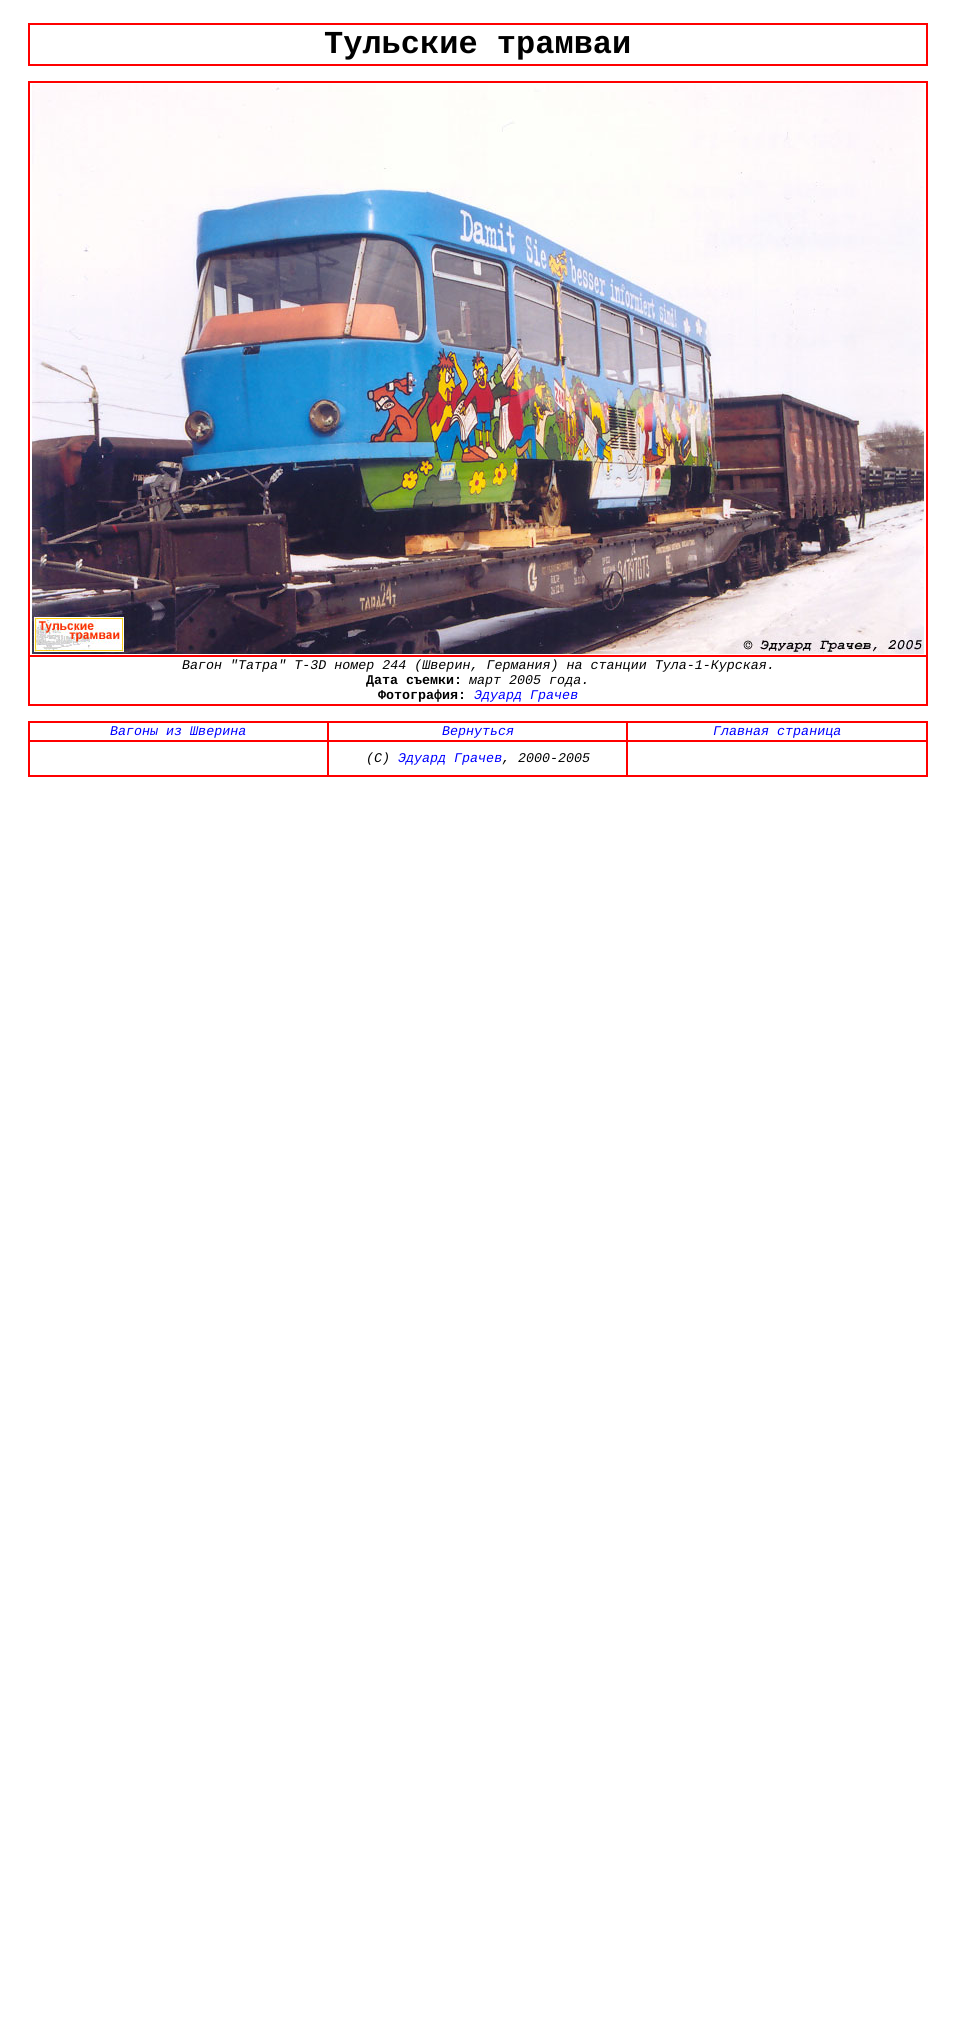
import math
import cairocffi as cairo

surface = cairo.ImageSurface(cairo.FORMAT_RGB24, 955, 2041)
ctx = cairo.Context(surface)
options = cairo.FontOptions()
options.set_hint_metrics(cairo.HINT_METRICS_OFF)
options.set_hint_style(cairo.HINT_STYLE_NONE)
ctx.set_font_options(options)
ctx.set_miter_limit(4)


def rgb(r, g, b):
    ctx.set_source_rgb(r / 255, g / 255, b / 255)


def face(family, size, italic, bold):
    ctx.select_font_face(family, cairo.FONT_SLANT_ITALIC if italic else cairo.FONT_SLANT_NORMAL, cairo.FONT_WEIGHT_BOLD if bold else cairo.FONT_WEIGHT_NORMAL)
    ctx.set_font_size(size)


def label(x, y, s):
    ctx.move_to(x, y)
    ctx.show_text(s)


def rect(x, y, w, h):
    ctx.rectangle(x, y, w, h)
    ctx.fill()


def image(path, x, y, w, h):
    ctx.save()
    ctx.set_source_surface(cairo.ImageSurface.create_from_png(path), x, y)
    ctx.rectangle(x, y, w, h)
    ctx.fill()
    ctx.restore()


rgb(255, 255, 255)
ctx.paint()
rgb(255, 0, 0)
rect(28, 23, 900, 43)
rgb(255, 255, 255)
rect(30, 25, 896, 39)
face('Liberation Mono', 32, 0, 1)
rgb(0, 0, 0)
label(324, 53, 'Тульские трамваи')
rgb(255, 0, 0)
rect(28, 81, 900, 625)
rgb(255, 255, 255)
rect(30, 83, 896, 572)
image('image0.png', 32, 84, 892, 570)
rect(30, 657, 896, 47)
face('Liberation Mono', 13.35, 1, 0)
rgb(0, 0, 0)
label(182, 669, 'Вагон "Татра" Т-3D номер 244 (Шверин, Германия) на станции Тула-1-Курская.')
face('Liberation Mono', 13.35, 0, 1)
label(366, 684, 'Дата съемки:')
face('Liberation Mono', 13.35, 1, 0)
label(469, 684, 'март 2005 года.')
face('Liberation Mono', 13.35, 0, 1)
label(378, 699, 'Фотография:')
face('Liberation Mono', 13.35, 1, 0)
rgb(0, 0, 255)
label(474, 699, 'Эдуард Грачев')
rgb(255, 0, 0)
rect(28, 721, 900, 56)
rgb(255, 255, 255)
rect(30, 723, 297, 17)
rgb(0, 0, 255)
label(110, 735, 'Вагоны из Шверина')
rgb(255, 255, 255)
rect(329, 723, 297, 17)
rgb(0, 0, 255)
label(442, 735, 'Вернуться')
rgb(255, 255, 255)
rect(628, 723, 298, 17)
rgb(0, 0, 255)
label(713, 735, 'Главная страница')
rgb(255, 255, 255)
rect(30, 742, 297, 33)
rect(329, 742, 297, 33)
rgb(0, 0, 0)
label(366, 762, '(C)')
rgb(0, 0, 255)
label(398, 762, 'Эдуард Грачев')
rgb(0, 0, 0)
label(502, 762, ', 2000-2005')
rgb(255, 255, 255)
rect(628, 742, 298, 33)
surface.write_to_png('render.png')
